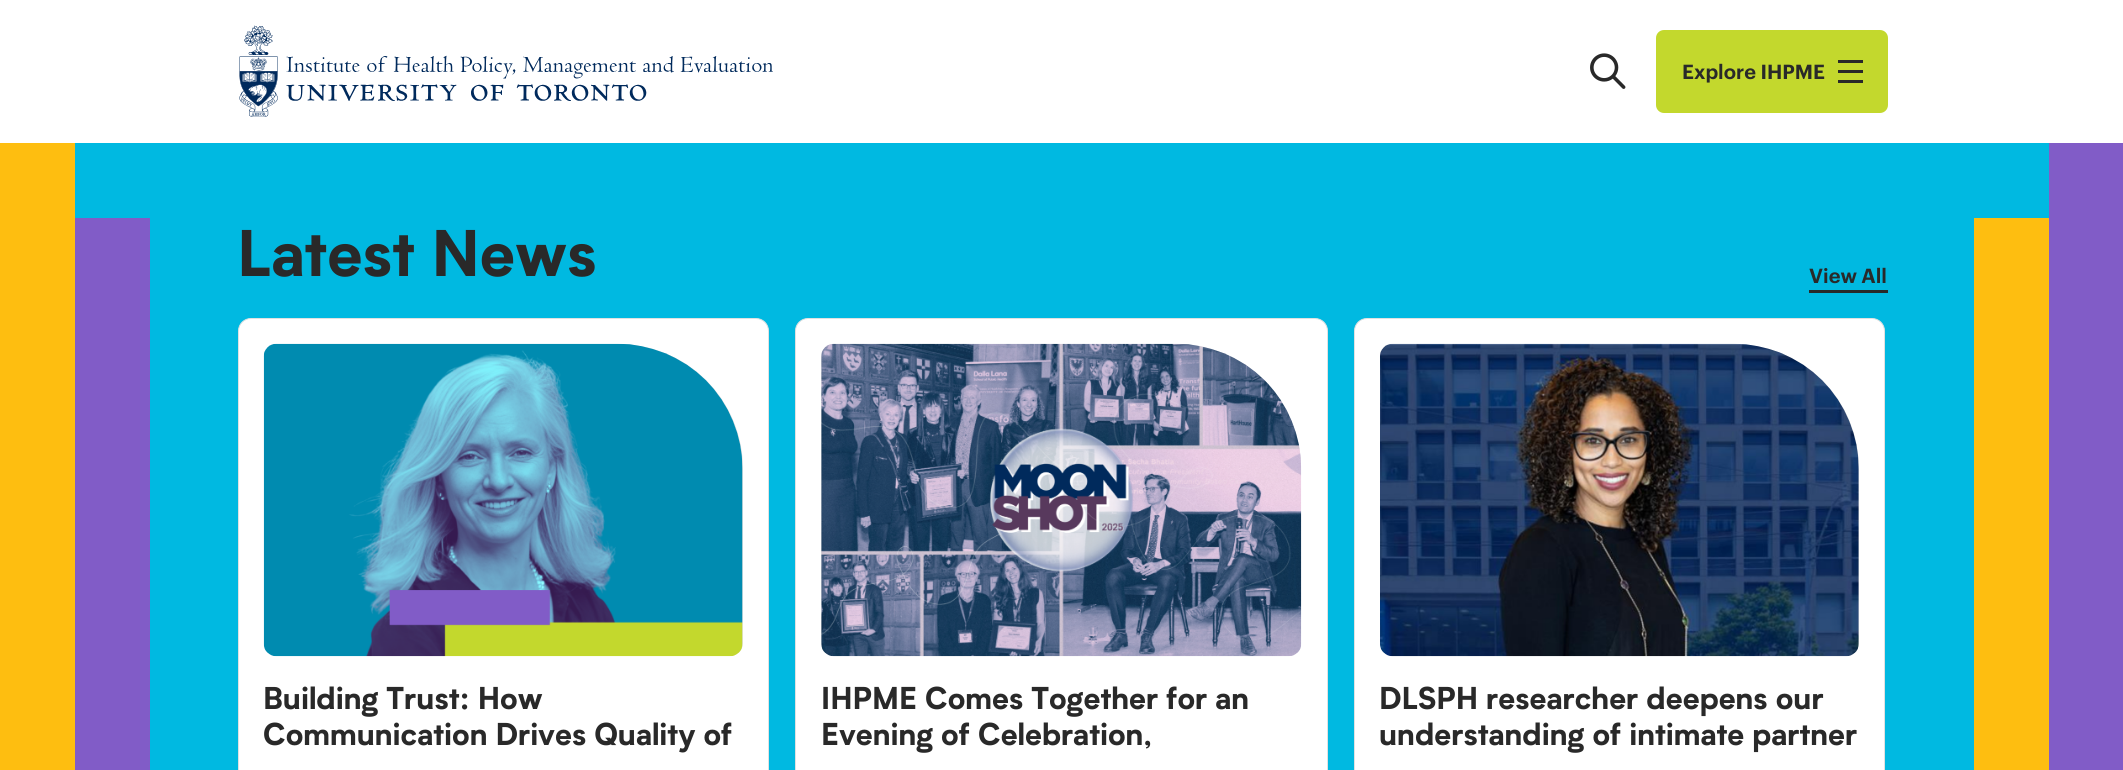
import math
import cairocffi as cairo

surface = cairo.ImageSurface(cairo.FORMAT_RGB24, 2123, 770)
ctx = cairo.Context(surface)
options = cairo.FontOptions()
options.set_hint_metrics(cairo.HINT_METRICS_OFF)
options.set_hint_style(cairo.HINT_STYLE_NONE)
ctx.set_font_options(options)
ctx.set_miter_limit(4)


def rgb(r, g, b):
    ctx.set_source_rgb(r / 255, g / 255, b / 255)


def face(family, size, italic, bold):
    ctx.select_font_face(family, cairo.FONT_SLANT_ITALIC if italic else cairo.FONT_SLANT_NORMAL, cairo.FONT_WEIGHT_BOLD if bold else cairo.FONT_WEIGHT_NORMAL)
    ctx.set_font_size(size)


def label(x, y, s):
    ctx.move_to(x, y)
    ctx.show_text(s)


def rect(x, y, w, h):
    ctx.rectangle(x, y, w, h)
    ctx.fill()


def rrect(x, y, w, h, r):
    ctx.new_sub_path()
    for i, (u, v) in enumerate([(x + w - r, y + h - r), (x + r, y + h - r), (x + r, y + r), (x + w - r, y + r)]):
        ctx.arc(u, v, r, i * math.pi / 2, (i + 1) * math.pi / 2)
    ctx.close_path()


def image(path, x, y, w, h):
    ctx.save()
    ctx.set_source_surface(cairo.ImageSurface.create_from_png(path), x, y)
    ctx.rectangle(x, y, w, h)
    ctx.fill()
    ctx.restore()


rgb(255, 255, 255)
ctx.paint()
image('image0.png', 239, 25, 534, 92)
image('image1.png', 1590, 53, 36, 36)
rgb(195, 216, 45)
rrect(1656, 30, 232, 83, 8)
ctx.fill()
face('Graphik SemiBold', 20, 0, 0)
rgb(41, 41, 41)
label(1682, 79, 'Explore IHPME')
rect(1838, 60, 25, 3)
rect(1838, 70, 25, 3)
rect(1838, 80, 25, 3)
rgb(0, 185, 225)
rect(75, 143, 1974, 627)
rgb(254, 190, 16)
rect(0, 143, 75, 627)
rgb(129, 92, 199)
rect(75, 218, 75, 552)
face('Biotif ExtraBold', 62.5, 0, 0)
rgb(41, 41, 41)
label(237, 276, 'Latest News')
rect(1809, 290, 79, 3)
face('Graphik SemiBold', 20, 0, 0)
label(1809, 283, 'View All')
rgb(255, 255, 255)
rrect(238.5, 318.5, 530, 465, 12.5)
ctx.fill_preserve()
rgb(225, 225, 225)
ctx.set_line_width(1)
ctx.stroke()
ctx.new_path()
ctx.move_to(277, 344.5)
ctx.line_to(618, 344.5)
ctx.curve_to(687, 344.5, 742.5, 400, 742.5, 469)
ctx.line_to(742.5, 643)
ctx.curve_to(742.5, 650, 737, 655.5, 730, 655.5)
ctx.line_to(277, 655.5)
ctx.curve_to(270, 655.5, 264.5, 650, 264.5, 643)
ctx.line_to(264.5, 357)
ctx.curve_to(264.5, 350, 270, 344.5, 277, 344.5)
ctx.close_path()
ctx.stroke()
image('image2.png', 263, 343, 480, 314)
face('Biotif ExtraBold', 30, 0, 0)
rgb(41, 41, 41)
label(263, 709, 'Building Trust: How')
label(263, 745, 'Communication Drives Quality of')
rgb(255, 255, 255)
rrect(795.5, 318.5, 532, 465, 12.5)
ctx.fill_preserve()
rgb(225, 225, 225)
ctx.stroke()
ctx.new_path()
ctx.move_to(834, 344.5)
ctx.line_to(1176, 344.5)
ctx.curve_to(1245, 344.5, 1300.5, 400, 1300.5, 469)
ctx.line_to(1300.5, 643)
ctx.curve_to(1300.5, 650, 1295, 655.5, 1288, 655.5)
ctx.line_to(834, 655.5)
ctx.curve_to(827, 655.5, 821.5, 650, 821.5, 643)
ctx.line_to(821.5, 357)
ctx.curve_to(821.5, 350, 827, 344.5, 834, 344.5)
ctx.close_path()
ctx.stroke()
image('image3.png', 821, 343, 481, 314)
rgb(41, 41, 41)
label(821, 709, 'IHPME Comes Together for an')
label(821, 745, 'Evening of Celebration,')
rgb(255, 255, 255)
rrect(1354.5, 318.5, 530, 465, 12.5)
ctx.fill_preserve()
rgb(225, 225, 225)
ctx.stroke()
ctx.new_path()
ctx.move_to(1393, 344.5)
ctx.line_to(1734, 344.5)
ctx.curve_to(1803, 344.5, 1858.5, 400, 1858.5, 469)
ctx.line_to(1858.5, 643)
ctx.curve_to(1858.5, 650, 1853, 655.5, 1846, 655.5)
ctx.line_to(1393, 655.5)
ctx.curve_to(1386, 655.5, 1380.5, 650, 1380.5, 643)
ctx.line_to(1380.5, 357)
ctx.curve_to(1380.5, 350, 1386, 344.5, 1393, 344.5)
ctx.close_path()
ctx.stroke()
image('image4.png', 1380, 343, 479, 314)
rgb(41, 41, 41)
label(1379, 709, 'DLSPH researcher deepens our')
label(1379, 745, 'understanding of intimate partner')
rgb(254, 190, 16)
rect(1974, 218, 75, 552)
rgb(129, 92, 199)
rect(2049, 143, 74, 627)
surface.write_to_png('render.png')
